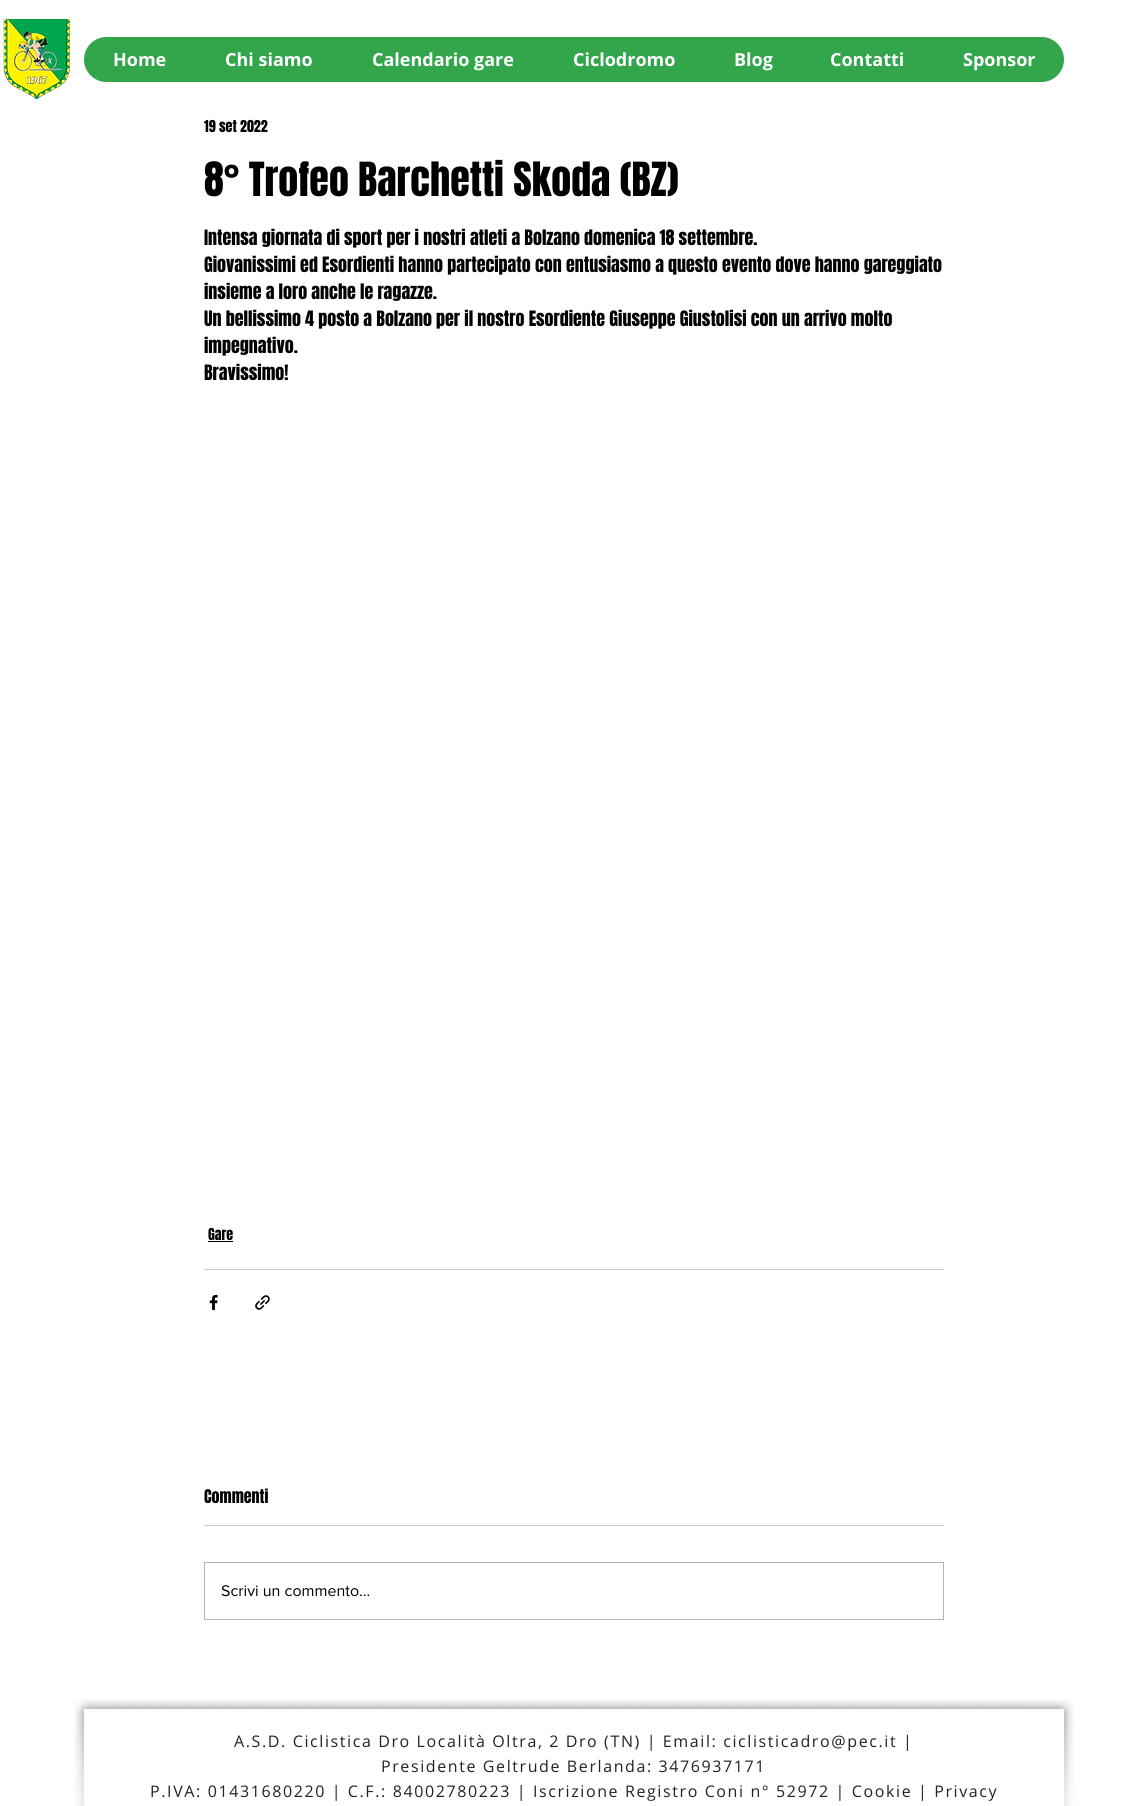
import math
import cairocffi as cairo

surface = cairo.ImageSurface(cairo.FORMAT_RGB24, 1148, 1806)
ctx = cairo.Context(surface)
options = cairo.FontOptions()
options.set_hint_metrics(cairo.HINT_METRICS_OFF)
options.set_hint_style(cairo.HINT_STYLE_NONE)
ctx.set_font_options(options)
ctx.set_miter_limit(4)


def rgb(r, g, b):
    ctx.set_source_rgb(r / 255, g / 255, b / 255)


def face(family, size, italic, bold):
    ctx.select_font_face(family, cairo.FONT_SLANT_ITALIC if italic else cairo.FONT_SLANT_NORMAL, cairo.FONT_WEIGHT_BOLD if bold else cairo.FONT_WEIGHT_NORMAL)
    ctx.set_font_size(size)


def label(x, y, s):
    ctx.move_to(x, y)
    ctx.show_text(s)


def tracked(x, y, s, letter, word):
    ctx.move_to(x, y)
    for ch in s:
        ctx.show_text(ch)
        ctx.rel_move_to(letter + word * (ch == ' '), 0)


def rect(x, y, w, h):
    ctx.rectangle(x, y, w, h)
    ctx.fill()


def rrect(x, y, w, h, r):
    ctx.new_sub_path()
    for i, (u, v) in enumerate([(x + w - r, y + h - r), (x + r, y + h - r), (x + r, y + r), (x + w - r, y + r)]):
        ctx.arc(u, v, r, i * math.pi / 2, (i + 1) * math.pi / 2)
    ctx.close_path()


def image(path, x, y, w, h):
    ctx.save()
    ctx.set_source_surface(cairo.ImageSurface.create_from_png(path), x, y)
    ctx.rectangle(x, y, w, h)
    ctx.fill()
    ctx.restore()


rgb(255, 255, 255)
ctx.paint()
image('image0.png', 3, 19, 67, 80)
rgb(51, 166, 76)
rrect(84, 37, 980, 45, 22.5)
ctx.fill()
face('Open Sans', 18, 0, 1)
rgb(255, 255, 255)
label(113, 66, 'Home')
label(225, 66, 'Chi siamo')
label(372, 66, 'Calendario gare')
label(573, 66, 'Ciclodromo')
label(734, 66, 'Blog')
label(830, 66, 'Contatti')
label(963, 66, 'Sponsor')
face('Anton', 14, 0, 0)
rgb(0, 0, 0)
label(204, 132, '19 set 2022')
face('Anton', 40, 0, 0)
label(204, 196, '8° Trofeo Barchetti Skoda (BZ)')
face('Anton', 18, 0, 0)
label(204, 245, 'Intensa giornata di sport per i nostri atleti a Bolzano domenica 18 settembre.')
label(204, 272, 'Giovanissimi ed Esordienti hanno partecipato con entusiasmo a questo evento dove hanno gareggiato')
label(204, 299, 'insieme a loro anche le ragazze.')
label(204, 326, 'Un bellissimo 4 posto a Bolzano per il nostro Esordiente Giuseppe Giustolisi con un arrivo molto')
label(204, 353, 'impegnativo.')
label(204, 380, 'Bravissimo!')
face('Anton', 14, 0, 0)
label(208, 1240, 'Gare')
rect(208, 1241, 25, 1)
rgb(204, 204, 204)
rect(204, 1269, 740, 1)
image('image1.png', 209, 1295, 9, 15)
image('image2.png', 255, 1295, 15, 15)
face('Anton', 16, 0, 0)
rgb(0, 0, 0)
label(204, 1503, 'Commenti')
rgb(204, 204, 204)
rect(204, 1525, 740, 1)
ctx.rectangle(204.5, 1562.5, 739, 57)
rgb(179, 179, 179)
ctx.set_line_width(1)
ctx.stroke()
face('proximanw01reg', 16, 0, 0)
rgb(0, 0, 0)
label(221, 1596, 'Scrivi un commento...')
image('image3.png', 74, 1699, 45, 107)
image('image4.png', 119, 1699, 910, 10)
image('image5.png', 1029, 1699, 45, 107)
rgb(255, 255, 255)
rect(84, 1709, 980, 97)
face('Open Sans', 16, 0, 0)
rgb(36, 35, 35)
tracked(234, 1747, 'A.S.D. Ciclistica Dro Località Oltra, 2 Dro (TN) | Email: ciclisticadro@pec.it |', 1.6, 0)
tracked(381, 1772, 'Presidente Geltrude Berlanda: 3476937171', 1.6, 0)
tracked(150, 1797, 'P.IVA: 01431680220 | C.F.: 84002780223 | Iscrizione Registro Coni n° 52972 | Cookie | Privacy', 1.6, 0)
surface.write_to_png('render.png')
